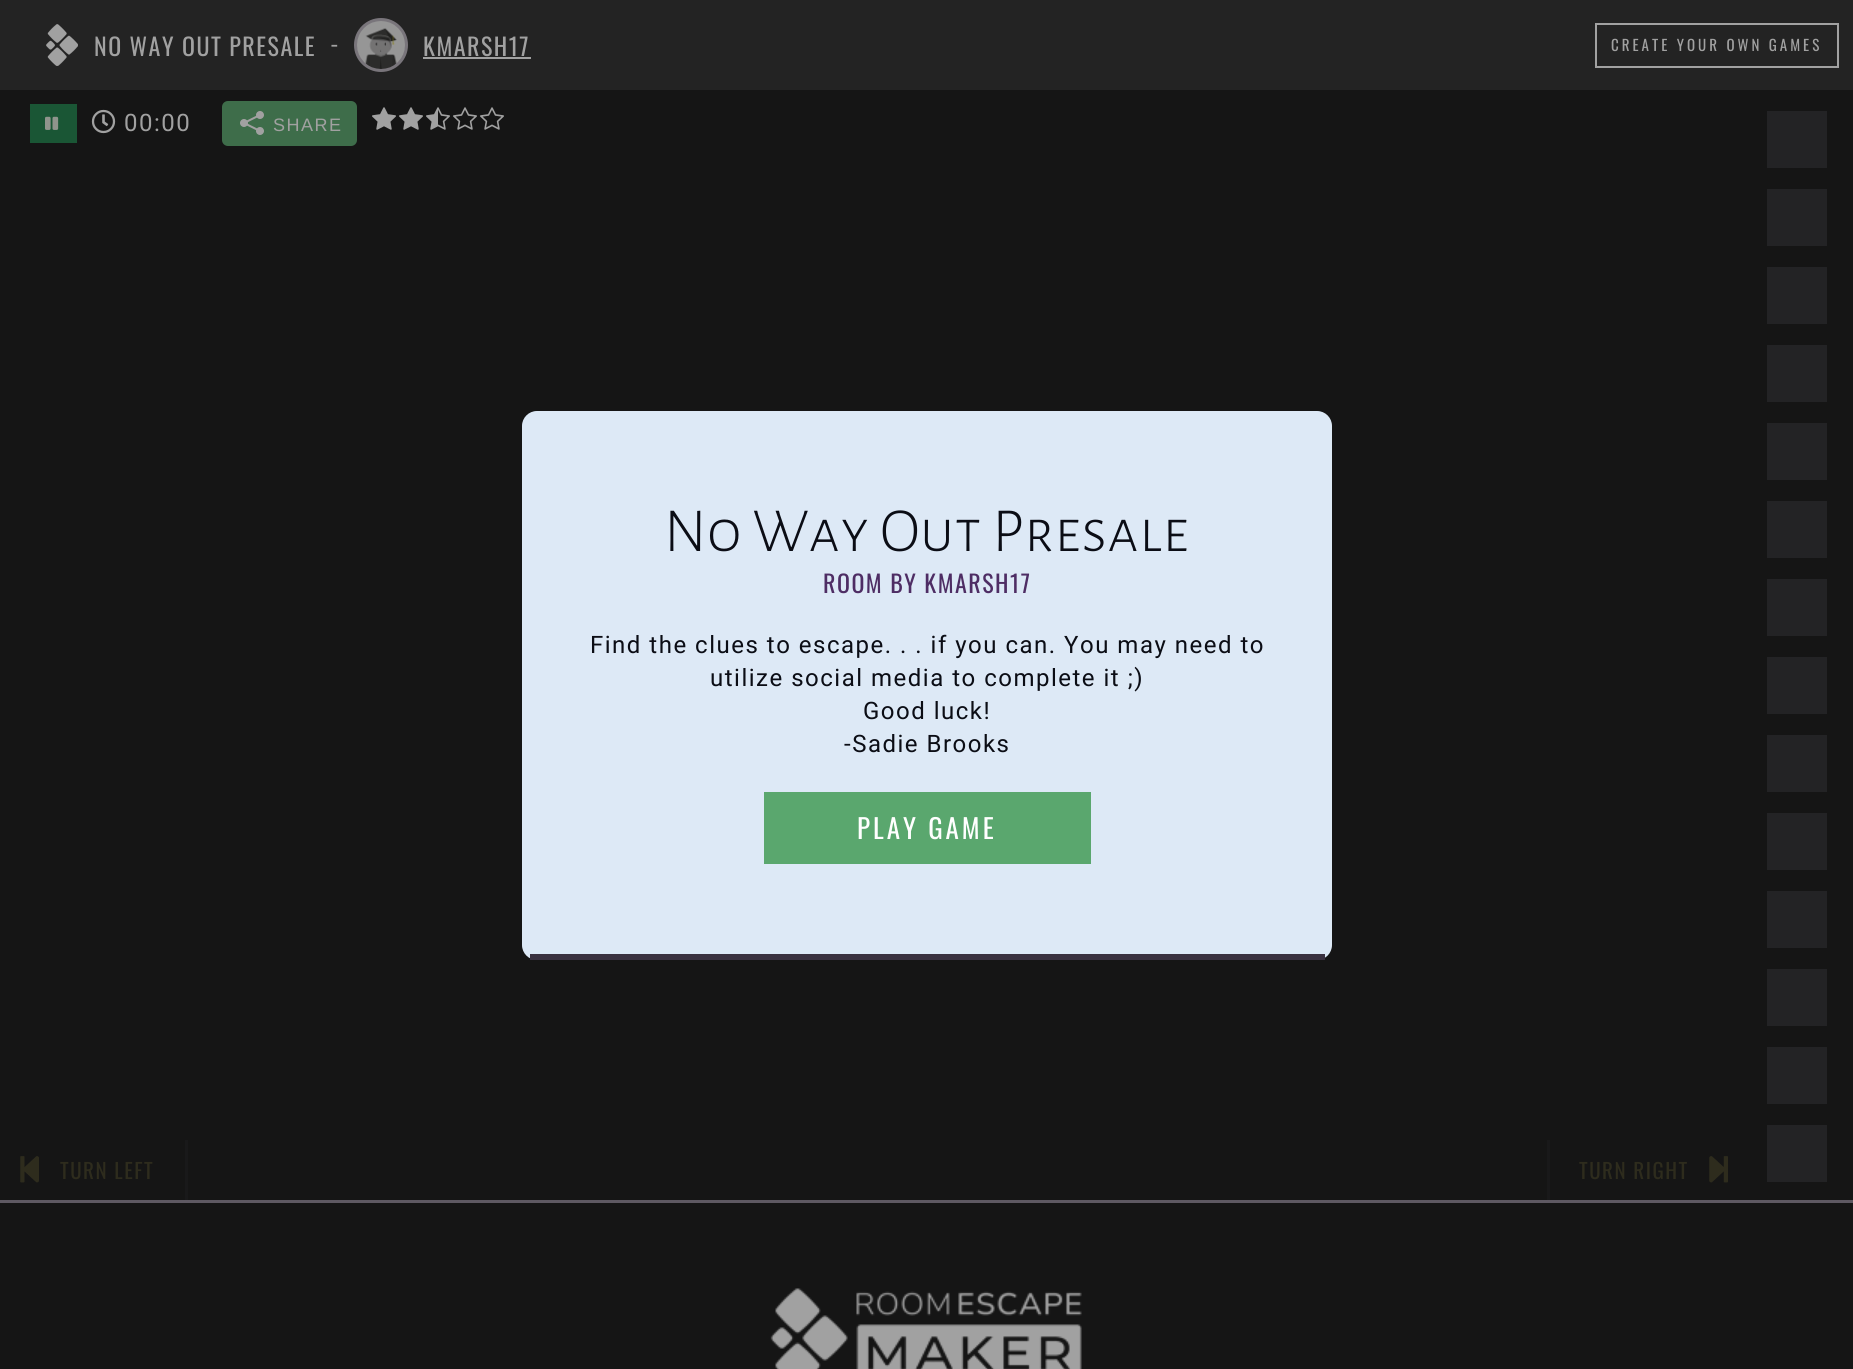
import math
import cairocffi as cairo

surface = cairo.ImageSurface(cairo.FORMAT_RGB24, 1853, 1369)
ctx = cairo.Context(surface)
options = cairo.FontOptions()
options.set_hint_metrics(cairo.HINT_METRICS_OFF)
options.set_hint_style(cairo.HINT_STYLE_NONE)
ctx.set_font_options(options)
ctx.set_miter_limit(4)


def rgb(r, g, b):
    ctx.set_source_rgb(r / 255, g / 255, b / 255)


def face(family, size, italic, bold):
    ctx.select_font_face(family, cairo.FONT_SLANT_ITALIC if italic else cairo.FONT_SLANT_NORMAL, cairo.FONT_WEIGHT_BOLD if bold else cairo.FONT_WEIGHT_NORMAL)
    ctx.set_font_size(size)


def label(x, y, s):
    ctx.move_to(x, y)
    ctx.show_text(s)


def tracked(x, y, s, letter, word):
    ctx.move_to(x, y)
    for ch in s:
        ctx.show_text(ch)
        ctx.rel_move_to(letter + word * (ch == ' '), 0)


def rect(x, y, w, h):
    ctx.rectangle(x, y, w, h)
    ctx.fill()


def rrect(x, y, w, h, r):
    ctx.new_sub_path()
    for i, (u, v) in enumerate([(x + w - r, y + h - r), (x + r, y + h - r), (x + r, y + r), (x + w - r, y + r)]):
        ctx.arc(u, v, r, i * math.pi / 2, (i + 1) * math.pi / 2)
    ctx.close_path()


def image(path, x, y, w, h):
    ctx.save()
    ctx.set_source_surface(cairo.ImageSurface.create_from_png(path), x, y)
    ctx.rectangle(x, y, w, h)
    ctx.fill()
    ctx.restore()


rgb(21, 21, 21)
ctx.paint()
rgb(35, 35, 35)
rect(0, 0, 1853, 90)
image('image0.png', 46, 24, 32, 42)
face('Oswald', 24, 0, 0)
rgb(161, 161, 161)
tracked(94, 56, 'NO WAY OUT PRESALE', 1.5, 0)
face('Roboto', 24, 0, 0)
tracked(331, 53, '-', 1.5, 0)
rgb(121, 117, 123)
ctx.new_path()
ctx.arc(381, 45, 27, 0, 2 * math.pi)
ctx.fill()
image('image1.png', 357, 21, 48, 48)
face('Oswald', 24, 0, 0)
rgb(161, 161, 161)
tracked(423, 56, 'KMARSH17', 1.5, 0)
rect(423, 57, 108, 2)
ctx.rectangle(1596, 24, 242, 43)
ctx.stroke()
face('Oswald', 15, 0, 0)
tracked(1611, 51, 'CREATE YOUR OWN GAMES', 3, 0)
rgb(26, 86, 53)
rect(30, 104, 47, 39)
image('image2.png', 45, 116, 14, 14)
image('image3.png', 91, 109, 25, 25)
face('Roboto', 24, 0, 0)
rgb(161, 161, 161)
tracked(124, 131, '00:00', 1.5, 0)
rgb(62, 109, 74)
rrect(222, 101, 135, 45, 6)
ctx.fill()
image('image4.png', 240, 111, 24, 24)
face('Liberation Sans', 18, 0, 0)
rgb(161, 161, 161)
tracked(273, 131, 'SHARE', 1.5, 0)
image('image5.png', 372, 107, 24, 23)
image('image5.png', 399, 107, 24, 23)
image('image6.png', 426, 107, 24, 23)
image('image7.png', 453, 107, 24, 23)
image('image7.png', 480, 107, 24, 23)
rgb(221, 233, 246)
rrect(522, 411, 810, 549, 15)
ctx.fill()
rgb(58, 49, 64)
rect(530, 954, 795, 6)
face('Alegreya Sans SC Light', 63, 0, 0)
rgb(11, 13, 21)
label(664, 551, 'No Way Out Presale')
face('Oswald', 24, 0, 0)
rgb(78, 45, 100)
tracked(823, 593, 'ROOM BY KMARSH17', 1.5, 0)
face('Roboto', 24, 0, 0)
rgb(11, 13, 21)
tracked(590, 653, 'Find the clues to escape. . . if you can. You may need to', 1.5, 0)
tracked(710, 686, 'utilize social media to complete it ;)', 1.5, 0)
tracked(863, 719, 'Good luck!', 1.5, 0)
tracked(844, 752, '-Sadie Brooks', 1.5, 0)
rgb(90, 167, 110)
rect(764, 792, 327, 72)
face('Oswald', 27, 0, 0)
rgb(255, 255, 255)
tracked(857, 839, 'PLAY GAME', 3, 0)
rgb(25, 25, 26)
rect(185, 1140, 3, 60)
image('image8.png', 20, 1156, 19, 27)
face('Oswald', 21, 0, 0)
rgb(46, 44, 29)
tracked(60, 1179, 'TURN LEFT', 1.5, 0)
rgb(25, 25, 26)
rect(1547, 1140, 3, 60)
rgb(46, 44, 29)
tracked(1579, 1179, 'TURN RIGHT', 1.5, 0)
image('image9.png', 1709, 1156, 19, 27)
rgb(35, 35, 37)
rect(1767, 111, 60, 1071)
rgb(21, 21, 21)
rect(1767, 168, 60, 21)
rect(1767, 246, 60, 21)
rect(1767, 324, 60, 21)
rect(1767, 402, 60, 21)
rect(1767, 480, 60, 21)
rect(1767, 558, 60, 21)
rect(1767, 636, 60, 21)
rect(1767, 714, 60, 21)
rect(1767, 792, 60, 21)
rect(1767, 870, 60, 21)
rect(1767, 948, 60, 21)
rect(1767, 1026, 60, 21)
rect(1767, 1104, 60, 21)
rgb(94, 89, 98)
rect(0, 1200, 1853, 3)
image('image10.png', 770, 1288, 312, 81)
surface.write_to_png('render.png')
